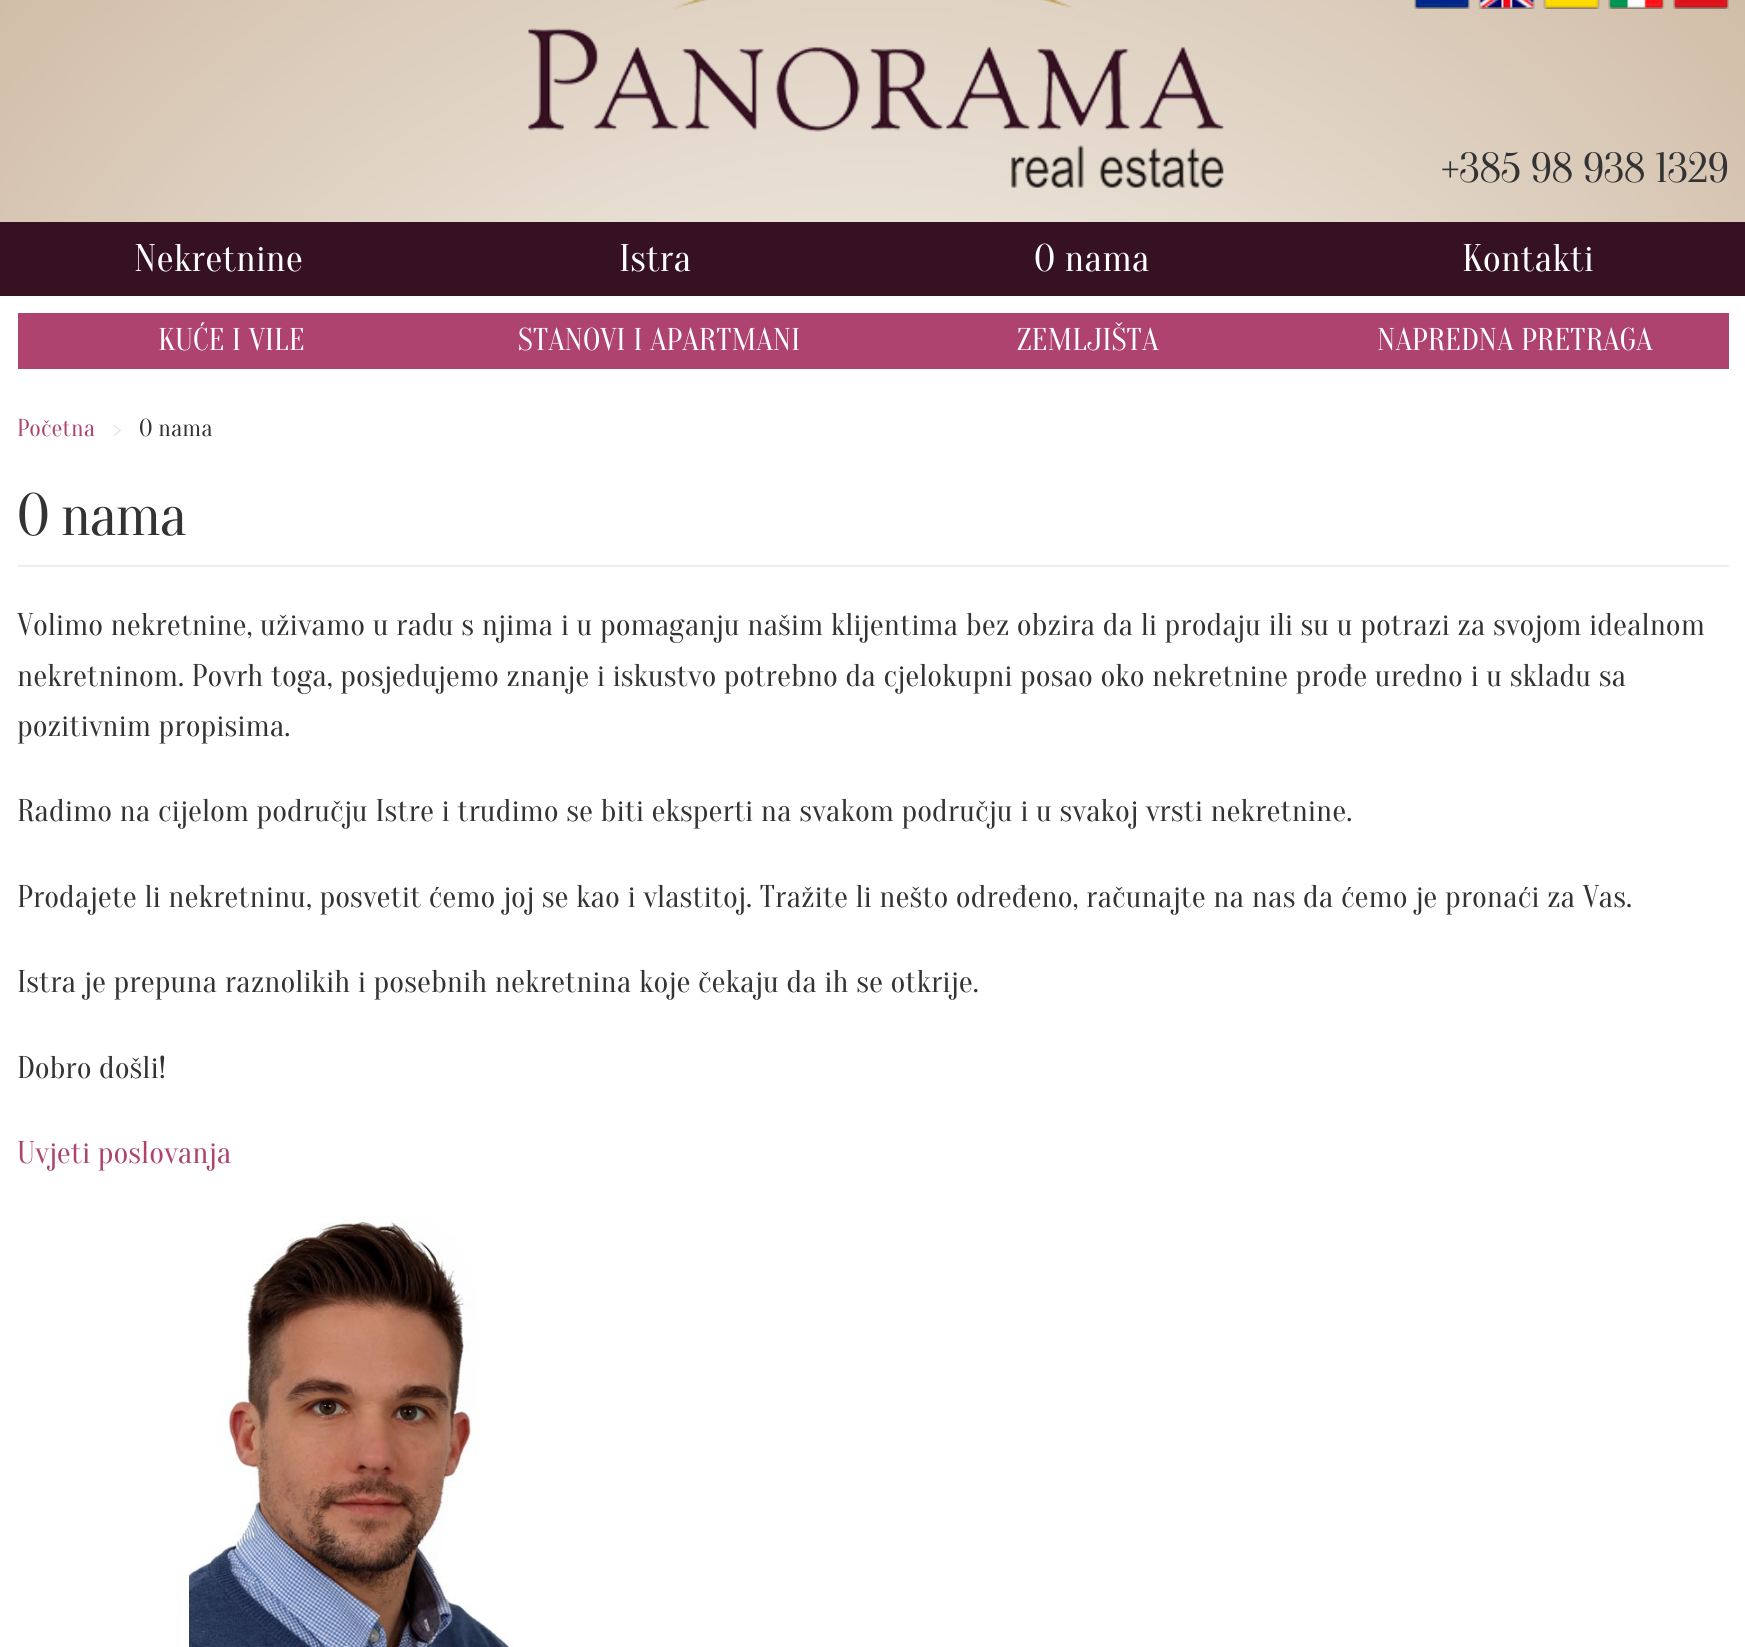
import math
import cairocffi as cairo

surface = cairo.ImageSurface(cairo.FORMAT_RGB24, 1745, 1647)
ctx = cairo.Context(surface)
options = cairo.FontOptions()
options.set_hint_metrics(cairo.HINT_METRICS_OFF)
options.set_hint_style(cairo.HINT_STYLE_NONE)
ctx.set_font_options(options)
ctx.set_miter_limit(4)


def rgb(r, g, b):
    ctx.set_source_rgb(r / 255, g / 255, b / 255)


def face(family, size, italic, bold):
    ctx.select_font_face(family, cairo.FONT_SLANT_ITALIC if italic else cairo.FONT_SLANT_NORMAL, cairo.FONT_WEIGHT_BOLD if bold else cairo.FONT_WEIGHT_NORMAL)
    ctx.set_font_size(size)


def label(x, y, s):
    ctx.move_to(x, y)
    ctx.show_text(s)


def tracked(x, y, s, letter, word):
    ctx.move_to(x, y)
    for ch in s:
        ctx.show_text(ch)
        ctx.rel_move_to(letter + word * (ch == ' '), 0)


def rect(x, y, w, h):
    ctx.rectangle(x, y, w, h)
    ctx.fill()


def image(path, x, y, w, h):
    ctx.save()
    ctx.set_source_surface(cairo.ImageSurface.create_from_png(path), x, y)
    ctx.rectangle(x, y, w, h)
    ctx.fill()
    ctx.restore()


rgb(255, 255, 255)
ctx.paint()
gradient = cairo.RadialGradient(0, 0, 0, 0, 0, 1)
gradient.set_matrix(cairo.Matrix(1 / 1235, 0, 0, 1 / 1166, -1 * 873 / 1235, -1 * 756 / 1166))
gradient.add_color_stop_rgba(0, 1, 1, 1, 1)
gradient.add_color_stop_rgba(1, 0.812, 0.733, 0.643, 1)
ctx.set_source(gradient)
rect(0, 0, 1745, 222)
image('image0.png', 527, 0, 697, 188)
image('image1.png', 1414, 0, 56, 9)
image('image2.png', 1478, 0, 57, 9)
image('image3.png', 1543, 0, 57, 9)
image('image4.png', 1608, 0, 57, 9)
image('image5.png', 1673, 0, 56, 9)
face('Oranienbaum', 42, 0, 0)
rgb(51, 51, 51)
label(1441, 182, '+385 98 938 1329')
rgb(53, 17, 34)
rect(0, 222, 1745, 74)
face('Oranienbaum', 38.5, 0, 0)
rgb(255, 255, 255)
label(134, 271, 'Nekretnine')
label(619, 271, 'Istra')
label(1034, 271, 'O nama')
label(1462, 271, 'Kontakti')
rgb(174, 67, 111)
rect(18, 313, 1711, 56)
face('Oranienbaum', 31.5, 0, 0)
rgb(255, 255, 255)
label(158, 350, 'KUĆE I VILE')
label(518, 350, 'STANOVI I APARTMANI')
label(1017, 350, 'ZEMLJIŠTA')
label(1377, 350, 'NAPREDNA PRETRAGA')
face('Oranienbaum', 24.5, 0, 0)
rgb(174, 67, 111)
label(17, 436, 'Početna')
rgb(221, 221, 221)
label(113, 436, '>')
rgb(51, 51, 51)
label(139, 436, 'O nama')
rgb(238, 238, 238)
rect(18, 565, 1711, 2)
face('Oranienbaum', 59.5, 0, 0)
rgb(51, 51, 51)
tracked(17, 535, 'O nama', -1.75, 0)
face('Oranienbaum', 31.5, 0, 0)
label(17, 635, 'Volimo nekretnine, uživamo u radu s njima i u pomaganju našim klijentima bez obzira da li prodaju ili su u potrazi za svojom idealnom')
label(17, 686, 'nekretninom. Povrh toga, posjedujemo znanje i iskustvo potrebno da cjelokupni posao oko nekretnine prođe uredno i u skladu sa')
label(17, 736, 'pozitivnim propisima.')
label(17, 821, 'Radimo na cijelom području Istre i trudimo se biti eksperti na svakom području i u svakoj vrsti nekretnine.')
label(17, 907, 'Prodajete li nekretninu, posvetit ćemo joj se kao i vlastitoj. Tražite li nešto određeno, računajte na nas da ćemo je pronaći za Vas.')
label(17, 992, 'Istra je prepuna raznolikih i posebnih nekretnina koje čekaju da ih se otkrije.')
label(17, 1078, 'Dobro došli!')
rgb(174, 67, 111)
label(17, 1163, 'Uvjeti poslovanja')
image('image6.png', 189, 1215, 324, 432)
surface.write_to_png('render.png')
